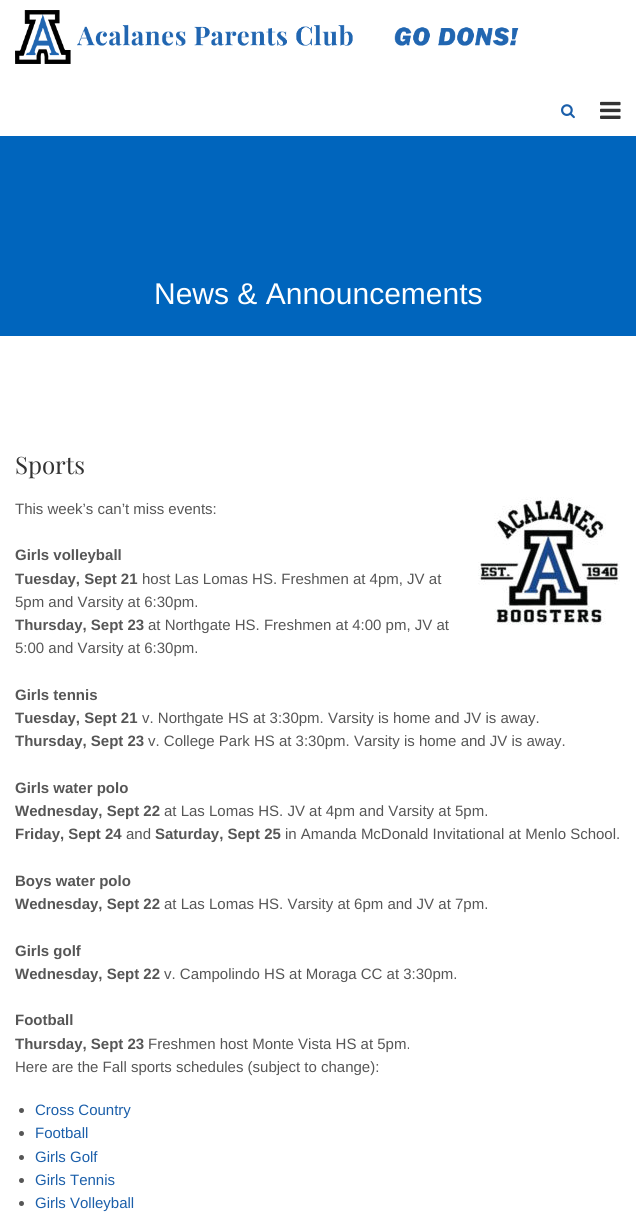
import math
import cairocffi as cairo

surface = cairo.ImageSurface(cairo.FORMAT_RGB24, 636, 1224)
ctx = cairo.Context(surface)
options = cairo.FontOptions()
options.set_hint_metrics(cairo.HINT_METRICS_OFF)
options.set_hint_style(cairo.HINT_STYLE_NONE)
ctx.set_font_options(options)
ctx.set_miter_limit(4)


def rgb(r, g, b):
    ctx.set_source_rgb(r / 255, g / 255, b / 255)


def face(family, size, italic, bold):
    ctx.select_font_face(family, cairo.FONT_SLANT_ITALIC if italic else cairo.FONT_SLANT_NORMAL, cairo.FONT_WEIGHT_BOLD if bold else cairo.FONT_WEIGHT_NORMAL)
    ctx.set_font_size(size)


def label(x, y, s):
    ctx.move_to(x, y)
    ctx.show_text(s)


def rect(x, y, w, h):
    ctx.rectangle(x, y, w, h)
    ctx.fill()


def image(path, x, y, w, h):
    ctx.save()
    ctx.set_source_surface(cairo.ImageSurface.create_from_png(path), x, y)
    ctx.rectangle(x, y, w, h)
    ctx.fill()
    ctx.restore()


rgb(255, 255, 255)
ctx.paint()
image('image0.png', 15, 10, 504, 54)
image('image1.png', 561, 104, 14, 15)
image('image2.png', 600, 101, 21, 18)
rgb(0, 101, 189)
rect(0, 136, 636, 200)
face('Liberation Sans', 30, 0, 0)
rgb(255, 255, 255)
label(154, 304, 'News & Announcements')
face('Playfair Display', 24, 0, 0)
rgb(51, 51, 51)
label(15, 474, 'Sports')
face('Liberation Sans', 15, 0, 0)
rgb(86, 86, 86)
label(15, 514, 'This week’s can’t miss events:')
image('image3.png', 478, 497, 142, 128)
face('Liberation Sans', 15, 0, 1)
label(15, 560, 'Girls volleyball')
label(15, 584, 'Tuesday, Sept 21')
face('Liberation Sans', 15, 0, 0)
label(142, 584, 'host Las Lomas HS. Freshmen at 4pm, JV at')
label(15, 607, '5pm and Varsity at 6:30pm.')
face('Liberation Sans', 15, 0, 1)
label(15, 630, 'Thursday, Sept 23')
face('Liberation Sans', 15, 0, 0)
label(148, 630, 'at Northgate HS. Freshmen at 4:00 pm, JV at')
label(15, 653, '5:00 and Varsity at 6:30pm.')
face('Liberation Sans', 15, 0, 1)
label(15, 700, 'Girls tennis')
label(15, 723, 'Tuesday, Sept 21')
face('Liberation Sans', 15, 0, 0)
label(142, 723, 'v. Northgate HS at 3:30pm. Varsity is home and JV is away.')
face('Liberation Sans', 15, 0, 1)
label(15, 746, 'Thursday, Sept 23')
face('Liberation Sans', 15, 0, 0)
label(148, 746, 'v. College Park HS at 3:30pm. Varsity is home and JV is away.')
face('Liberation Sans', 15, 0, 1)
label(15, 793, 'Girls water polo')
label(15, 816, 'Wednesday, Sept 22')
face('Liberation Sans', 15, 0, 0)
label(164, 816, 'at Las Lomas HS. JV at 4pm and Varsity at 5pm.')
face('Liberation Sans', 15, 0, 1)
label(15, 839, 'Friday, Sept 24')
face('Liberation Sans', 15, 0, 0)
label(126, 839, 'and')
face('Liberation Sans', 15, 0, 1)
label(155, 839, 'Saturday, Sept 25')
face('Liberation Sans', 15, 0, 0)
label(285, 839, 'in Amanda McDonald Invitational at Menlo School.')
face('Liberation Sans', 15, 0, 1)
label(15, 886, 'Boys water polo')
label(15, 909, 'Wednesday, Sept 22')
face('Liberation Sans', 15, 0, 0)
label(164, 909, 'at Las Lomas HS. Varsity at 6pm and JV at 7pm.')
face('Liberation Sans', 15, 0, 1)
label(15, 956, 'Girls golf')
label(15, 979, 'Wednesday, Sept 22')
face('Liberation Sans', 15, 0, 0)
label(164, 979, 'v. Campolindo HS at Moraga CC at 3:30pm.')
face('Liberation Sans', 15, 0, 1)
label(15, 1025, 'Football')
label(15, 1049, 'Thursday, Sept 23')
face('Liberation Sans', 15, 0, 0)
label(148, 1049, 'Freshmen host Monte Vista HS at 5pm.')
label(15, 1072, 'Here are the Fall sports schedules (subject to change):')
ctx.new_path()
ctx.arc(21.5, 1110.5, 2.5, 0, 2 * math.pi)
ctx.fill()
rgb(27, 95, 170)
label(35, 1115, 'Cross Country')
rgb(86, 86, 86)
ctx.new_path()
ctx.arc(21.5, 1133.5, 2.5, 0, 2 * math.pi)
ctx.fill()
rgb(27, 95, 170)
label(35, 1138, 'Football')
rgb(86, 86, 86)
ctx.new_path()
ctx.arc(21.5, 1157.5, 2.5, 0, 2 * math.pi)
ctx.fill()
rgb(27, 95, 170)
label(35, 1162, 'Girls Golf')
rgb(86, 86, 86)
ctx.new_path()
ctx.arc(21.5, 1180.5, 2.5, 0, 2 * math.pi)
ctx.fill()
rgb(27, 95, 170)
label(35, 1185, 'Girls Tennis')
rgb(86, 86, 86)
ctx.new_path()
ctx.arc(21.5, 1203.5, 2.5, 0, 2 * math.pi)
ctx.fill()
rgb(27, 95, 170)
label(35, 1208, 'Girls Volleyball')
surface.write_to_png('render.png')
